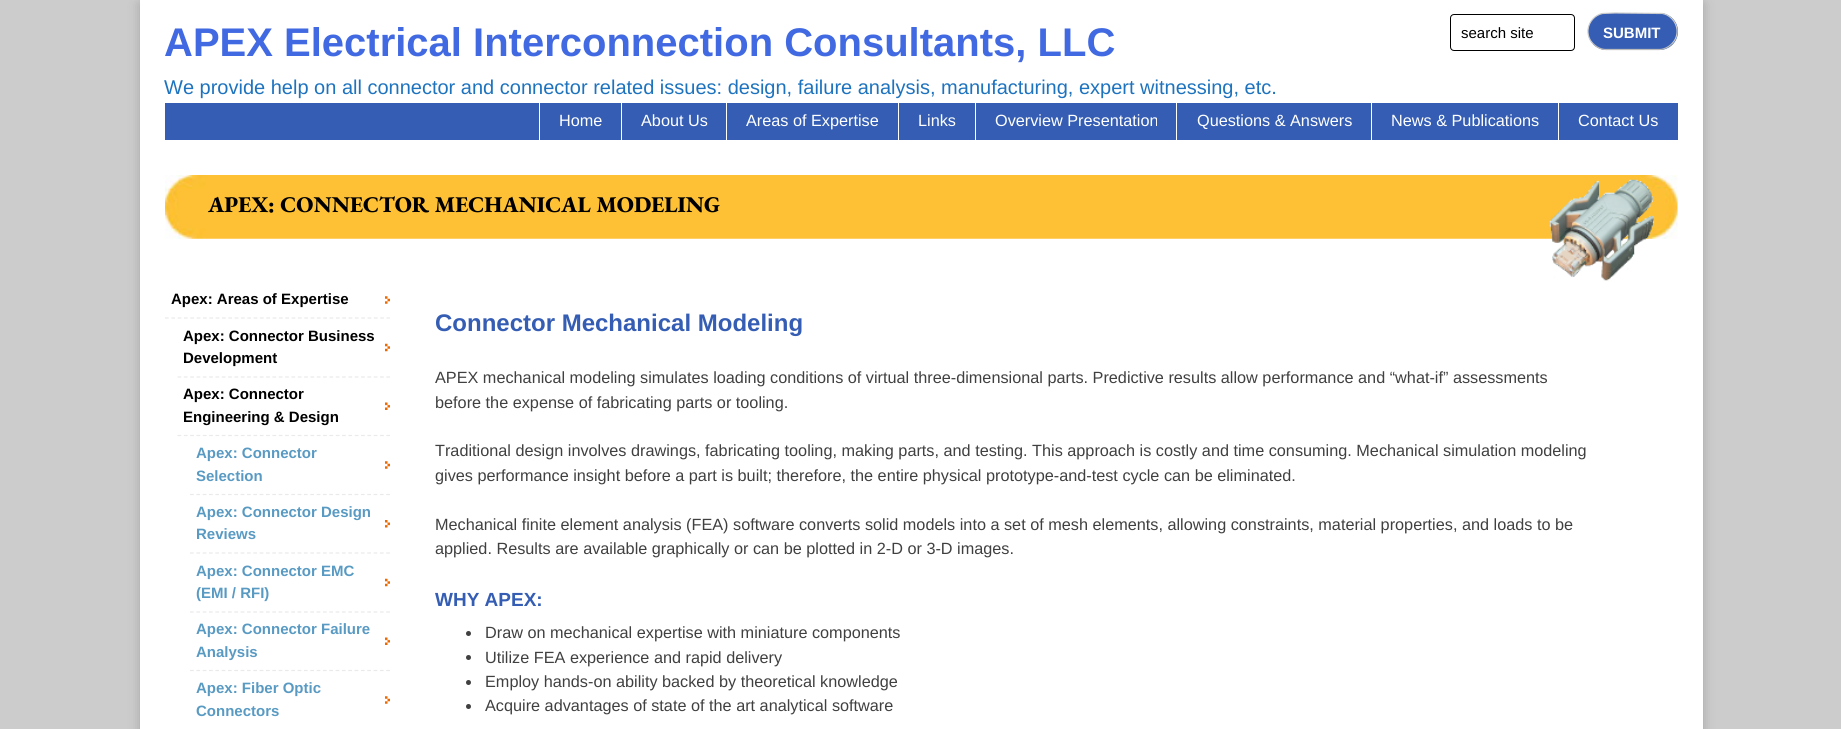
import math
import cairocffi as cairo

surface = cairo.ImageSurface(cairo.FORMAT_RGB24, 1841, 729)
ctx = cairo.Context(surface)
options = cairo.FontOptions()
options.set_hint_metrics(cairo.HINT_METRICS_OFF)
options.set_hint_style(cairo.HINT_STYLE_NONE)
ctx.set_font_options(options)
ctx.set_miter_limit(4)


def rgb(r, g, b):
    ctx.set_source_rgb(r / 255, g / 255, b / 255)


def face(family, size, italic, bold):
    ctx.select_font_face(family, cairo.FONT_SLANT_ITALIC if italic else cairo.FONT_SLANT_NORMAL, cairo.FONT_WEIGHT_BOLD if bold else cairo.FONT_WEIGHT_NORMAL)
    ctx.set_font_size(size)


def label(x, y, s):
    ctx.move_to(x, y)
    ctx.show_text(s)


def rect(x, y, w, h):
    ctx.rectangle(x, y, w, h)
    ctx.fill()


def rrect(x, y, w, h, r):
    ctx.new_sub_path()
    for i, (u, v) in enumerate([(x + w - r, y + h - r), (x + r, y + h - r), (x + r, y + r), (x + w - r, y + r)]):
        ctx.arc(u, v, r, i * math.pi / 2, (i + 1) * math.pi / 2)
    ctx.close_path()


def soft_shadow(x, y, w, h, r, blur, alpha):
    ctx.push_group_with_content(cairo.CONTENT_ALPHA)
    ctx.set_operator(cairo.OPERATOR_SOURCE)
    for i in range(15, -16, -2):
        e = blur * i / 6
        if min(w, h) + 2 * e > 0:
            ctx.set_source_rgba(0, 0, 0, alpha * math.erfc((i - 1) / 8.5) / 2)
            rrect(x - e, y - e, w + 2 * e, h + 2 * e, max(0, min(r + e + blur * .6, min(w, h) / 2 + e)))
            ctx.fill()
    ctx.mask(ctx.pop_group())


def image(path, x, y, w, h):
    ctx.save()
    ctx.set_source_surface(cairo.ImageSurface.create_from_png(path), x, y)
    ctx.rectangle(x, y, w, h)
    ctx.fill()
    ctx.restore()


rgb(204, 204, 204)
ctx.paint()
rgb(0, 0, 0)
soft_shadow(140, 4, 1563, 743, 0, 6, 0.2)
rgb(255, 255, 255)
rect(140, 0, 1563, 729)
face('Liberation Sans', 40, 0, 1)
rgb(65, 105, 225)
label(164, 56, 'APEX Electrical Interconnection Consultants, LLC')
face('Liberation Sans', 20, 0, 0)
rgb(30, 115, 190)
label(164, 94, 'We provide help on all connector and connector related issues: design, failure analysis, manufacturing, expert witnessing, etc.')
rrect(1450.5, 14.5, 124, 36, 3.5)
rgb(0, 0, 0)
ctx.set_line_width(1)
ctx.stroke()
face('Liberation Sans', 15, 0, 0)
label(1461, 38, 'search site')
rgb(52, 93, 179)
rrect(1588, 13, 90, 37, 18.5)
ctx.fill()
ctx.new_path()
ctx.move_to(1671.5, 44)
ctx.curve_to(1668, 47.5, 1663.5, 49.5, 1659, 49.5)
ctx.line_to(1606, 49.5)
ctx.curve_to(1601.5, 49.5, 1597, 47.5, 1593.5, 44)
rgb(187, 187, 187)
ctx.set_line_width(1.2)
ctx.stroke()
ctx.new_path()
ctx.move_to(1593.5, 44)
ctx.curve_to(1589.5, 40.5, 1587.5, 35, 1588, 29.5)
ctx.curve_to(1589, 21.5, 1595, 15, 1602.5, 13.5)
ctx.line_to(1615, 13)
ctx.line_to(1662.5, 13.5)
ctx.curve_to(1670, 15, 1676, 21.5, 1677, 29.5)
ctx.curve_to(1677.5, 35, 1675.5, 40.5, 1671.5, 44)
rgb(204, 204, 204)
ctx.stroke()
face('Liberation Sans', 15, 0, 1)
rgb(255, 255, 255)
label(1603, 38, 'SUBMIT')
rgb(52, 93, 179)
rect(165, 103, 1513, 37)
rgb(255, 255, 255)
rect(539, 103, 1, 37)
face('Liberation Sans', 16.25, 0, 0)
label(559, 126, 'Home')
rect(621, 103, 1, 37)
label(641, 126, 'About Us')
rect(726, 103, 1, 37)
label(746, 126, 'Areas of Expertise')
rect(898, 103, 1, 37)
label(918, 126, 'Links')
rect(975, 103, 1, 37)
label(995, 126, 'Overview Presentation')
rect(1176, 103, 1, 37)
label(1197, 126, 'Questions & Answers')
rect(1371, 103, 1, 37)
label(1391, 126, 'News & Publications')
rect(1558, 103, 1, 37)
label(1578, 126, 'Contact Us')
image('image0.png', 165, 175, 1513, 64)
face('EB Garamond ExtraBold', 22.5, 0, 0)
rgb(0, 0, 0)
label(208, 212, 'APEX: CONNECTOR MECHANICAL MODELING')
image('image1.png', 1549, 179, 106, 102)
image('image2.png', 385, 296, 5, 8)
ctx.new_path()
ctx.move_to(165, 318)
ctx.line_to(390, 318)
rgb(234, 234, 234)
ctx.set_dash([3.75, 2.58])
ctx.stroke()
face('Liberation Sans', 15, 0, 1)
rgb(0, 0, 0)
label(171, 304, 'Apex: Areas of Expertise')
image('image3.png', 385, 343, 5, 9)
ctx.new_path()
ctx.move_to(177.5, 377)
ctx.line_to(390, 377)
rgb(234, 234, 234)
ctx.stroke()
rgb(0, 0, 0)
label(183, 341, 'Apex: Connector Business')
label(183, 363, 'Development')
image('image4.png', 385, 402, 5, 8)
ctx.new_path()
ctx.move_to(177.5, 435.5)
ctx.line_to(390, 435.5)
rgb(234, 234, 234)
ctx.stroke()
rgb(0, 0, 0)
label(183, 399, 'Apex: Connector')
label(183, 422, 'Engineering & Design')
image('image2.png', 385, 461, 5, 8)
ctx.new_path()
ctx.move_to(190, 494.5)
ctx.line_to(390, 494.5)
rgb(234, 234, 234)
ctx.stroke()
rgb(89, 154, 195)
label(196, 458, 'Apex: Connector')
label(196, 481, 'Selection')
image('image5.png', 385, 520, 5, 8)
ctx.new_path()
ctx.move_to(190, 553)
ctx.line_to(390, 553)
rgb(234, 234, 234)
ctx.stroke()
rgb(89, 154, 195)
label(196, 517, 'Apex: Connector Design')
label(196, 539, 'Reviews')
image('image3.png', 385, 578, 5, 9)
ctx.new_path()
ctx.move_to(190, 612)
ctx.line_to(390, 612)
rgb(234, 234, 234)
ctx.stroke()
rgb(89, 154, 195)
label(196, 576, 'Apex: Connector EMC')
label(196, 598, '(EMI / RFI)')
image('image4.png', 385, 637, 5, 8)
ctx.new_path()
ctx.move_to(190, 670.5)
ctx.line_to(390, 670.5)
rgb(234, 234, 234)
ctx.stroke()
rgb(89, 154, 195)
label(196, 634, 'Apex: Connector Failure')
label(196, 657, 'Analysis')
image('image2.png', 385, 696, 5, 8)
label(196, 693, 'Apex: Fiber Optic')
label(196, 716, 'Connectors')
face('Liberation Sans', 24, 0, 1)
rgb(52, 93, 179)
label(435, 331, 'Connector Mechanical Modeling')
face('Liberation Sans', 16.25, 0, 0)
rgb(64, 64, 64)
label(435, 383, 'APEX mechanical modeling simulates loading conditions of virtual three-dimensional parts. Predictive results allow performance and “what-if” assessments')
label(435, 408, 'before the expense of fabricating parts or tooling.')
label(435, 456, 'Traditional design involves drawings, fabricating tooling, making parts, and testing. This approach is costly and time consuming. Mechanical simulation modeling')
label(435, 481, 'gives performance insight before a part is built; therefore, the entire physical prototype-and-test cycle can be eliminated.')
label(435, 530, 'Mechanical finite element analysis (FEA) software converts solid models into a set of mesh elements, allowing constraints, material properties, and loads to be')
label(435, 554, 'applied. Results are available graphically or can be plotted in 2-D or 3-D images.')
face('Liberation Sans', 19, 0, 1)
rgb(52, 93, 179)
label(435, 606, 'WHY APEX:')
rgb(64, 64, 64)
ctx.new_path()
ctx.arc(468.5, 633.5, 2.5, 0, 2 * math.pi)
ctx.fill()
face('Liberation Sans', 16.25, 0, 0)
label(485, 638, 'Draw on mechanical expertise with miniature components')
ctx.new_path()
ctx.arc(468.5, 657.5, 2.5, 0, 2 * math.pi)
ctx.fill()
label(485, 663, 'Utilize FEA experience and rapid delivery')
ctx.new_path()
ctx.arc(468.5, 682.5, 2.5, 0, 2 * math.pi)
ctx.fill()
label(485, 687, 'Employ hands-on ability backed by theoretical knowledge')
ctx.new_path()
ctx.arc(468.5, 706.5, 2.5, 0, 2 * math.pi)
ctx.fill()
label(485, 711, 'Acquire advantages of state of the art analytical software')
surface.write_to_png('render.png')
